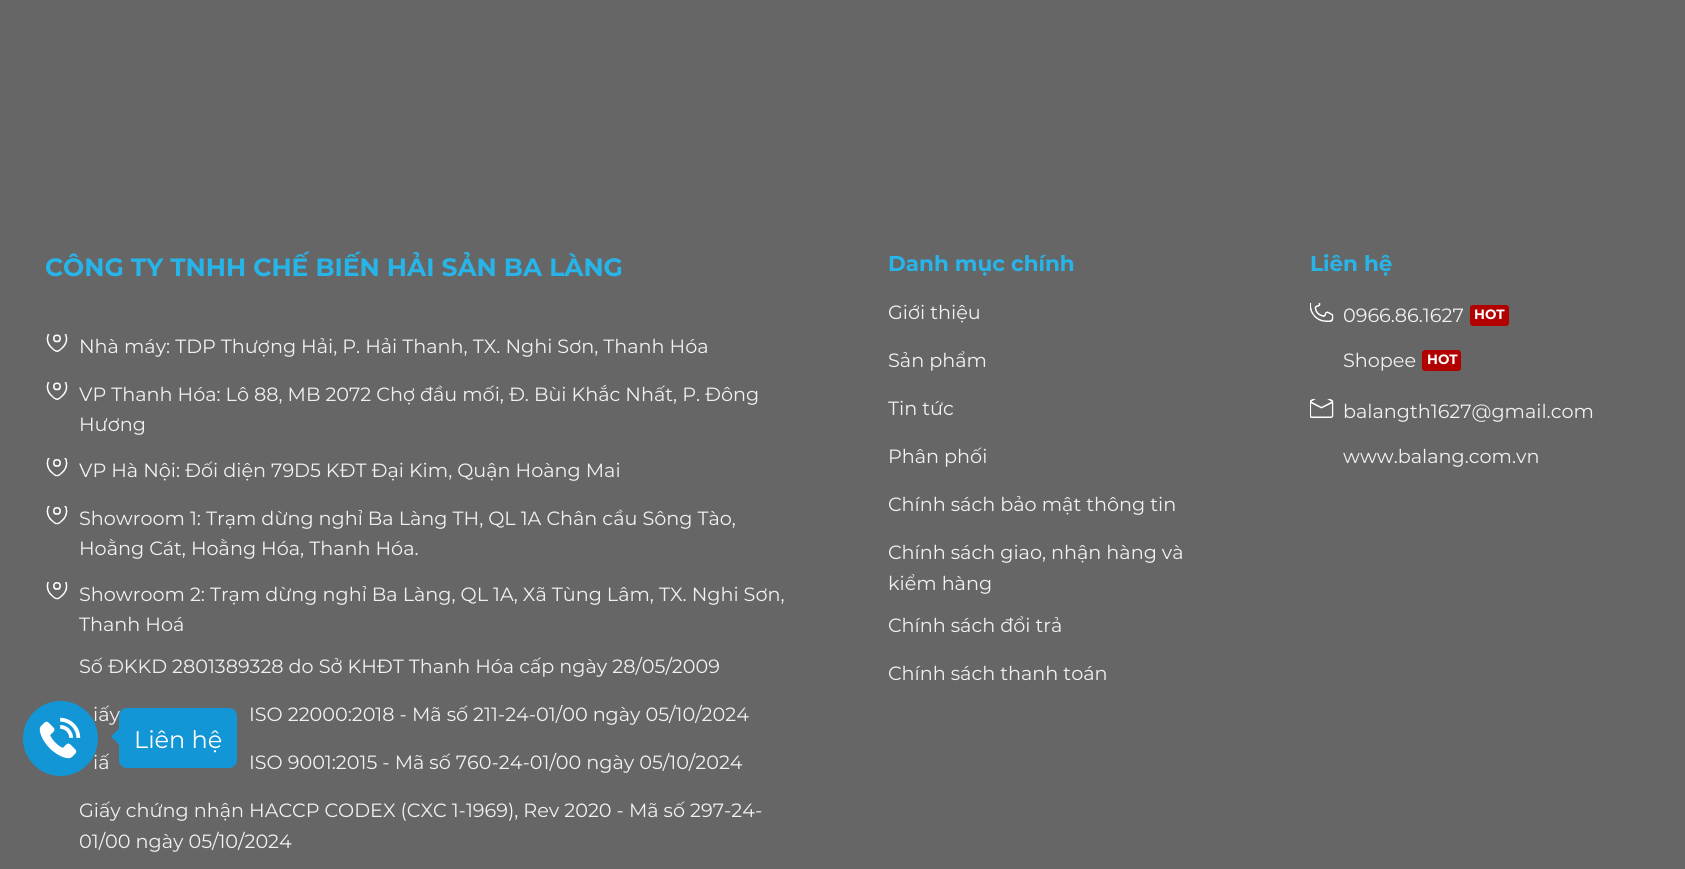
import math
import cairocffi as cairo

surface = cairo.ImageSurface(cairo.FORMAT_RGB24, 1685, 869)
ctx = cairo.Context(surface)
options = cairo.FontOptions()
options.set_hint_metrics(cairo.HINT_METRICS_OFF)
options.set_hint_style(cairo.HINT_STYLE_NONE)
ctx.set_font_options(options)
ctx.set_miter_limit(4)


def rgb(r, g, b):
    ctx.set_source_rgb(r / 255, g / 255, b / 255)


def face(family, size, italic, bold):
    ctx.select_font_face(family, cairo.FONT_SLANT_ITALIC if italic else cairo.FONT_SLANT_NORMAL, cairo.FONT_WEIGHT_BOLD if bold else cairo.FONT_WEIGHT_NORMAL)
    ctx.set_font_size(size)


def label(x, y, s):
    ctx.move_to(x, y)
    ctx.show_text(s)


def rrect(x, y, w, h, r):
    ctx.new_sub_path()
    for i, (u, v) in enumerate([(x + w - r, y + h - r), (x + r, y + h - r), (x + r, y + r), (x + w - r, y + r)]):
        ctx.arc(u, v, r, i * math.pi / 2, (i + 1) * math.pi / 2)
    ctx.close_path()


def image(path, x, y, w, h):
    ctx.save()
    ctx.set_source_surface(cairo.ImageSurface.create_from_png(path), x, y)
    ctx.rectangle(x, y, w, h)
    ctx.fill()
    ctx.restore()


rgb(102, 102, 102)
ctx.paint()
face('Montserrat', 25, 0, 1)
rgb(39, 181, 233)
label(45, 276, 'CÔNG TY TNHH CHẾ BIẾN HẢI SẢN BA LÀNG')
image('image0.png', 46, 334, 22, 18)
face('Montserrat', 19.2, 0, 0)
rgb(241, 241, 241)
label(79, 353, 'Nhà máy: TDP Thượng Hải, P. Hải Thanh, TX. Nghi Sơn, Thanh Hóa')
image('image0.png', 46, 382, 22, 18)
label(79, 401, 'VP Thanh Hóa: Lô 88, MB 2072 Chợ đầu mối, Đ. Bùi Khắc Nhất, P. Đông')
label(79, 431, 'Hương')
image('image1.png', 46, 458, 22, 19)
label(79, 477, 'VP Hà Nội: Đối diện 79D5 KĐT Đại Kim, Quận Hoàng Mai')
image('image1.png', 46, 506, 22, 19)
label(79, 525, 'Showroom 1: Trạm dừng nghỉ Ba Làng TH, QL 1A Chân cầu Sông Tào,')
label(79, 555, 'Hoằng Cát, Hoằng Hóa, Thanh Hóa.')
image('image2.png', 46, 582, 22, 18)
label(79, 601, 'Showroom 2: Trạm dừng nghỉ Ba Làng, QL 1A, Xã Tùng Lâm, TX. Nghi Sơn,')
label(79, 631, 'Thanh Hoá')
label(79, 673, 'Số ĐKKD 2801389328 do Sở KHĐT Thanh Hóa cấp ngày 28/05/2009')
label(93, 721, 'iấy')
label(249, 721, 'ISO 22000:2018 - Mã số 211-24-01/00 ngày 05/10/2024')
label(93, 769, 'iấ')
label(249, 769, 'ISO 9001:2015 - Mã số 760-24-01/00 ngày 05/10/2024')
label(79, 817, 'Giấy chứng nhận HACCP CODEX (CXC 1-1969), Rev 2020 - Mã số 297-24-')
label(79, 848, '01/00 ngày 05/10/2024')
face('Montserrat', 21.5, 0, 1)
rgb(39, 181, 233)
label(888, 271, 'Danh mục chính')
face('Montserrat', 19.2, 0, 0)
rgb(241, 241, 241)
label(888, 319, 'Giới thiệu')
label(888, 367, 'Sản phẩm')
label(888, 415, 'Tin tức')
label(888, 463, 'Phân phối')
label(888, 511, 'Chính sách bảo mật thông tin')
label(888, 559, 'Chính sách giao, nhận hàng và')
label(888, 590, 'kiểm hàng')
label(888, 632, 'Chính sách đổi trả')
label(888, 680, 'Chính sách thanh toán')
face('Montserrat', 21.5, 0, 1)
rgb(39, 181, 233)
label(1310, 271, 'Liên hệ')
image('image3.png', 1310, 303, 24, 19)
face('Montserrat', 19.2, 0, 0)
rgb(241, 241, 241)
label(1343, 322, '0966.86.1627')
rgb(178, 0, 0)
rrect(1470, 305, 39, 21, 3)
ctx.fill()
face('Montserrat', 13.5, 0, 1)
rgb(255, 255, 255)
label(1474, 319, 'HOT')
face('Montserrat', 19.2, 0, 0)
rgb(241, 241, 241)
label(1343, 367, 'Shopee')
rgb(178, 0, 0)
rrect(1422, 350, 39, 21, 3)
ctx.fill()
face('Montserrat', 13.5, 0, 1)
rgb(255, 255, 255)
label(1427, 364, 'HOT')
image('image4.png', 1310, 399, 24, 19)
face('Montserrat', 19.2, 0, 0)
rgb(241, 241, 241)
label(1343, 418, 'balangth1627@gmail.com')
label(1343, 463, 'www.balang.com.vn')
rgb(18, 150, 213)
ctx.new_path()
ctx.arc(60.5, 738.5, 37.5, 0, 2 * math.pi)
ctx.fill()
image('image5.png', 39, 717, 42, 42)
rrect(119, 708, 118, 60, 8)
ctx.fill()
ctx.new_path()
ctx.move_to(120, 727.5)
ctx.line_to(120, 745.5)
ctx.line_to(111, 736.5)
ctx.close_path()
ctx.fill()
face('Montserrat', 24, 0, 0)
rgb(255, 255, 255)
label(134, 748, 'Liên hệ')
surface.write_to_png('render.png')
